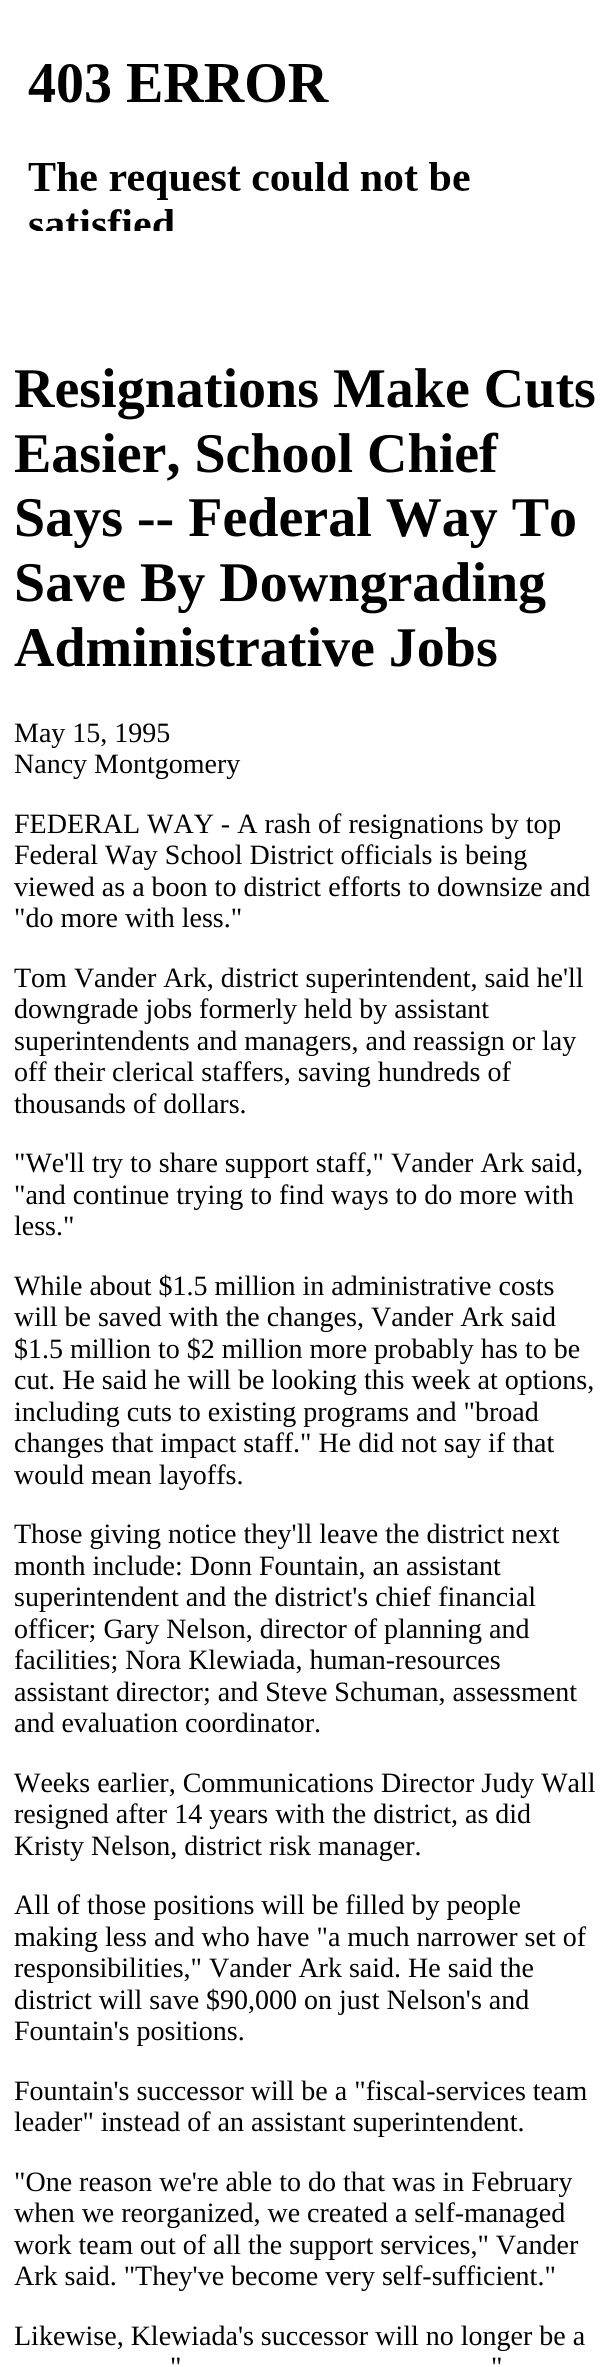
import math
import cairocffi as cairo

surface = cairo.ImageSurface(cairo.FORMAT_RGB24, 610, 2367)
ctx = cairo.Context(surface)
options = cairo.FontOptions()
options.set_hint_metrics(cairo.HINT_METRICS_OFF)
options.set_hint_style(cairo.HINT_STYLE_NONE)
ctx.set_font_options(options)
ctx.set_miter_limit(4)


def rgb(r, g, b):
    ctx.set_source_rgb(r / 255, g / 255, b / 255)


def face(family, size, italic, bold):
    ctx.select_font_face(family, cairo.FONT_SLANT_ITALIC if italic else cairo.FONT_SLANT_NORMAL, cairo.FONT_WEIGHT_BOLD if bold else cairo.FONT_WEIGHT_NORMAL)
    ctx.set_font_size(size)


def label(x, y, s):
    ctx.move_to(x, y)
    ctx.show_text(s)


def image(path, x, y, w, h):
    ctx.save()
    ctx.set_source_surface(cairo.ImageSurface.create_from_png(path), x, y)
    ctx.rectangle(x, y, w, h)
    ctx.fill()
    ctx.restore()


rgb(255, 255, 255)
ctx.paint()
image('image0.png', 28, 64, 442, 167)
face('Liberation Serif', 56, 0, 1)
rgb(0, 0, 0)
label(14, 407, 'Resignations Make Cuts')
label(14, 472, 'Easier, School Chief')
label(14, 536, 'Says -- Federal Way To')
label(14, 601, 'Save By Downgrading')
label(14, 666, 'Administrative Jobs')
face('Liberation Serif', 28, 0, 0)
label(14, 742, 'May 15, 1995')
label(14, 773, 'Nancy Montgomery')
label(14, 833, 'FEDERAL WAY - A rash of resignations by top')
label(14, 864, 'Federal Way School District officials is being')
label(14, 896, 'viewed as a boon to district efforts to downsize and')
label(14, 927, '"do more with less."')
label(14, 987, 'Tom Vander Ark, district superintendent, said he\'ll')
label(14, 1018, 'downgrade jobs formerly held by assistant')
label(14, 1050, 'superintendents and managers, and reassign or lay')
label(14, 1081, 'off their clerical staffers, saving hundreds of')
label(14, 1113, 'thousands of dollars.')
label(14, 1172, '"We\'ll try to share support staff," Vander Ark said,')
label(14, 1204, '"and continue trying to find ways to do more with')
label(14, 1235, 'less."')
label(14, 1295, 'While about $1.5 million in administrative costs')
label(14, 1326, 'will be saved with the changes, Vander Ark said')
label(14, 1358, '$1.5 million to $2 million more probably has to be')
label(14, 1389, 'cut. He said he will be looking this week at options,')
label(14, 1421, 'including cuts to existing programs and "broad')
label(14, 1452, 'changes that impact staff." He did not say if that')
label(14, 1484, 'would mean layoffs.')
label(14, 1543, 'Those giving notice they\'ll leave the district next')
label(14, 1575, 'month include: Donn Fountain, an assistant')
label(14, 1606, 'superintendent and the district\'s chief financial')
label(14, 1638, 'officer; Gary Nelson, director of planning and')
label(14, 1669, 'facilities; Nora Klewiada, human-resources')
label(14, 1701, 'assistant director; and Steve Schuman, assessment')
label(14, 1732, 'and evaluation coordinator.')
label(14, 1792, 'Weeks earlier, Communications Director Judy Wall')
label(14, 1823, 'resigned after 14 years with the district, as did')
label(14, 1855, 'Kristy Nelson, district risk manager.')
label(14, 1914, 'All of those positions will be filled by people')
label(14, 1946, 'making less and who have "a much narrower set of')
label(14, 1977, 'responsibilities," Vander Ark said. He said the')
label(14, 2009, 'district will save $90,000 on just Nelson\'s and')
label(14, 2040, 'Fountain\'s positions.')
label(14, 2100, 'Fountain\'s successor will be a "fiscal-services team')
label(14, 2131, 'leader" instead of an assistant superintendent.')
label(14, 2191, '"One reason we\'re able to do that was in February')
label(14, 2222, 'when we reorganized, we created a self-managed')
label(14, 2254, 'work team out of all the support services," Vander')
label(14, 2285, 'Ark said. "They\'ve become very self-sufficient."')
label(14, 2345, 'Likewise, Klewiada\'s successor will no longer be a')
label(170, 2376, '"')
label(491, 2376, '"')
surface.write_to_png('render.png')
